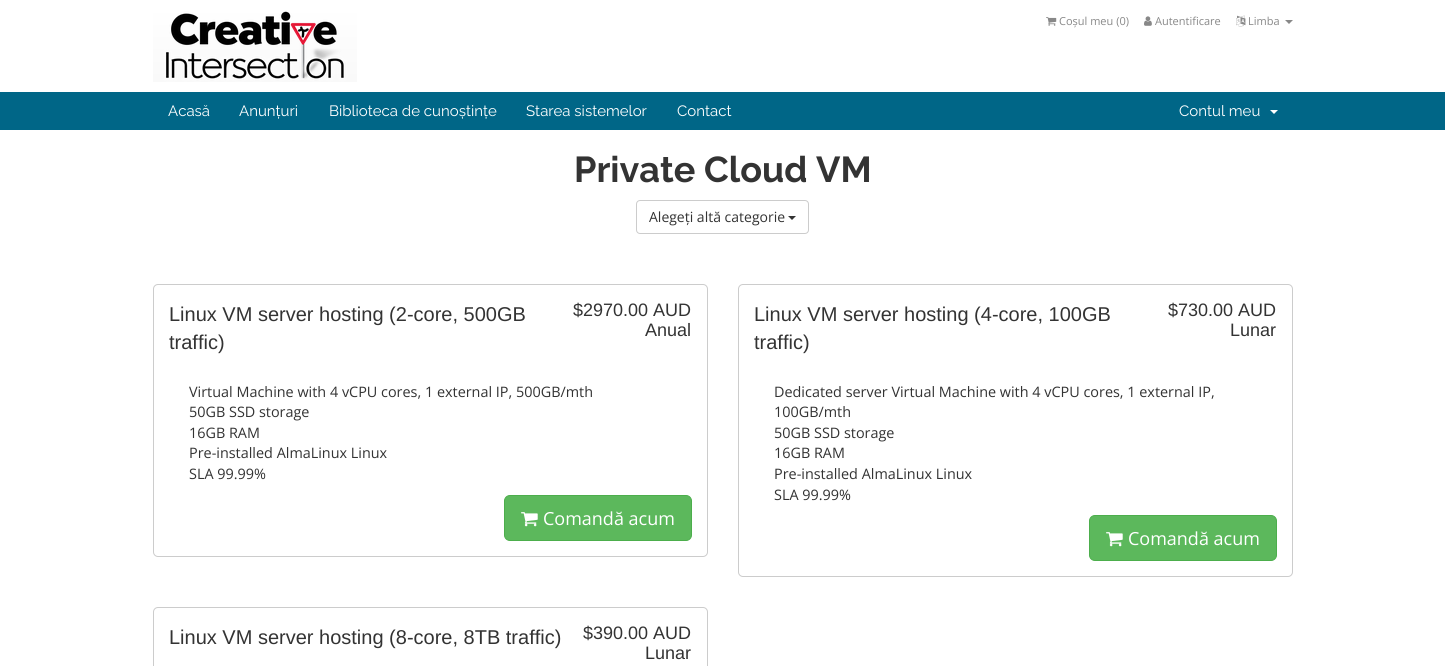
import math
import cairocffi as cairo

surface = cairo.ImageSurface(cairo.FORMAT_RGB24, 1445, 666)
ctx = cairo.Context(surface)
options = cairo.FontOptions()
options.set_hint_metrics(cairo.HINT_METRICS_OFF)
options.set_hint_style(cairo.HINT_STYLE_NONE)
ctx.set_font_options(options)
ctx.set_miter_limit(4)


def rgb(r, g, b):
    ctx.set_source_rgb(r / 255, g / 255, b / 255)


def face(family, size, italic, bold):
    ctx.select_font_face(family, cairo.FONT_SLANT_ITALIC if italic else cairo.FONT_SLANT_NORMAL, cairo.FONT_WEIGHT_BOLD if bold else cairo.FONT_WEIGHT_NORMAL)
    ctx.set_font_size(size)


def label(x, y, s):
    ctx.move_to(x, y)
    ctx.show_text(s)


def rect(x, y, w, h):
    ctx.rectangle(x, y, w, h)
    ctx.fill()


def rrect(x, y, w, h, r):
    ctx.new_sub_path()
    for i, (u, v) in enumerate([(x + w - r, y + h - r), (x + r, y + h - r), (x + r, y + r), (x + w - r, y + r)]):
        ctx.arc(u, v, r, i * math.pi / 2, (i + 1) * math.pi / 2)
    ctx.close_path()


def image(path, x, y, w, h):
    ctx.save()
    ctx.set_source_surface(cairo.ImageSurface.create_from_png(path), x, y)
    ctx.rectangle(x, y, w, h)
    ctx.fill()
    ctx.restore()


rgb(255, 255, 255)
ctx.paint()
image('image0.png', 153, 11, 204, 71)
image('image1.png', 1046, 17, 11, 9)
face('Open Sans', 11, 0, 0)
rgb(136, 136, 136)
label(1059, 25, 'Coșul meu (0)')
image('image2.png', 1144, 16, 8, 10)
label(1155, 25, 'Autentificare')
image('image3.png', 1236, 15, 10, 12)
label(1248, 25, 'Limba')
ctx.new_path()
ctx.move_to(1285, 20)
ctx.line_to(1293, 20)
ctx.line_to(1289, 24)
ctx.close_path()
ctx.fill()
rgb(0, 102, 135)
rect(0, 92, 1445, 38)
face('Raleway', 15, 0, 0)
rgb(255, 255, 255)
label(168, 116, 'Acasă')
label(239, 116, 'Anunțuri')
label(329, 116, 'Biblioteca de cunoștințe')
label(526, 116, 'Starea sistemelor')
label(677, 116, 'Contact')
label(1179, 116, 'Contul meu')
ctx.new_path()
ctx.move_to(1270, 110)
ctx.line_to(1278, 110)
ctx.line_to(1274, 114)
ctx.close_path()
ctx.fill()
face('Raleway', 36, 0, 1)
rgb(51, 51, 51)
label(574, 182, 'Private Cloud VM')
rrect(636.5, 200.5, 172, 33, 3.5)
rgb(204, 204, 204)
ctx.set_line_width(1)
ctx.stroke()
face('Open Sans', 14, 0, 0)
rgb(51, 51, 51)
label(649, 222, 'Alegeți altă categorie')
ctx.new_path()
ctx.move_to(788, 216)
ctx.line_to(796, 216)
ctx.line_to(792, 220)
ctx.close_path()
ctx.fill()
rrect(153.5, 284.5, 554, 272, 4.5)
rgb(204, 204, 204)
ctx.stroke()
face('Liberation Sans', 20, 0, 0)
rgb(51, 51, 51)
label(169, 321, 'Linux VM server hosting (2-core, 500GB')
label(169, 349, 'traffic)')
face('Liberation Sans', 18, 0, 0)
label(573, 316, '$2970.00 AUD')
label(645, 336, 'Anual')
face('Open Sans', 14.4, 0, 0)
label(189, 397, 'Virtual Machine with 4 vCPU cores, 1 external IP, 500GB/mth')
label(189, 417, '50GB SSD storage')
label(189, 438, '16GB RAM')
label(189, 458, 'Pre-installed AlmaLinux Linux')
label(189, 479, 'SLA 99.99%')
rgb(92, 184, 92)
rrect(504.5, 495.5, 187, 45, 5.5)
ctx.fill_preserve()
rgb(76, 174, 76)
ctx.stroke()
image('image4.png', 521, 512, 17, 15)
face('Open Sans', 18, 0, 0)
rgb(255, 255, 255)
label(543, 525, 'Comandă acum')
rrect(738.5, 284.5, 554, 292, 4.5)
rgb(204, 204, 204)
ctx.stroke()
face('Liberation Sans', 20, 0, 0)
rgb(51, 51, 51)
label(754, 321, 'Linux VM server hosting (4-core, 100GB')
label(754, 349, 'traffic)')
face('Liberation Sans', 18, 0, 0)
label(1168, 316, '$730.00 AUD')
label(1230, 336, 'Lunar')
face('Open Sans', 14.4, 0, 0)
label(774, 397, 'Dedicated server Virtual Machine with 4 vCPU cores, 1 external IP,')
label(774, 417, '100GB/mth')
label(774, 438, '50GB SSD storage')
label(774, 458, '16GB RAM')
label(774, 479, 'Pre-installed AlmaLinux Linux')
label(774, 500, 'SLA 99.99%')
rgb(92, 184, 92)
rrect(1089.5, 515.5, 187, 45, 5.5)
ctx.fill_preserve()
rgb(76, 174, 76)
ctx.stroke()
image('image4.png', 1106, 532, 17, 15)
face('Open Sans', 18, 0, 0)
rgb(255, 255, 255)
label(1128, 545, 'Comandă acum')
rrect(153.5, 607.5, 554, 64, 4.5)
rgb(204, 204, 204)
ctx.stroke()
face('Liberation Sans', 20, 0, 0)
rgb(51, 51, 51)
label(169, 644, 'Linux VM server hosting (8-core, 8TB traffic)')
face('Liberation Sans', 18, 0, 0)
label(583, 639, '$390.00 AUD')
label(645, 659, 'Lunar')
surface.write_to_png('render.png')
